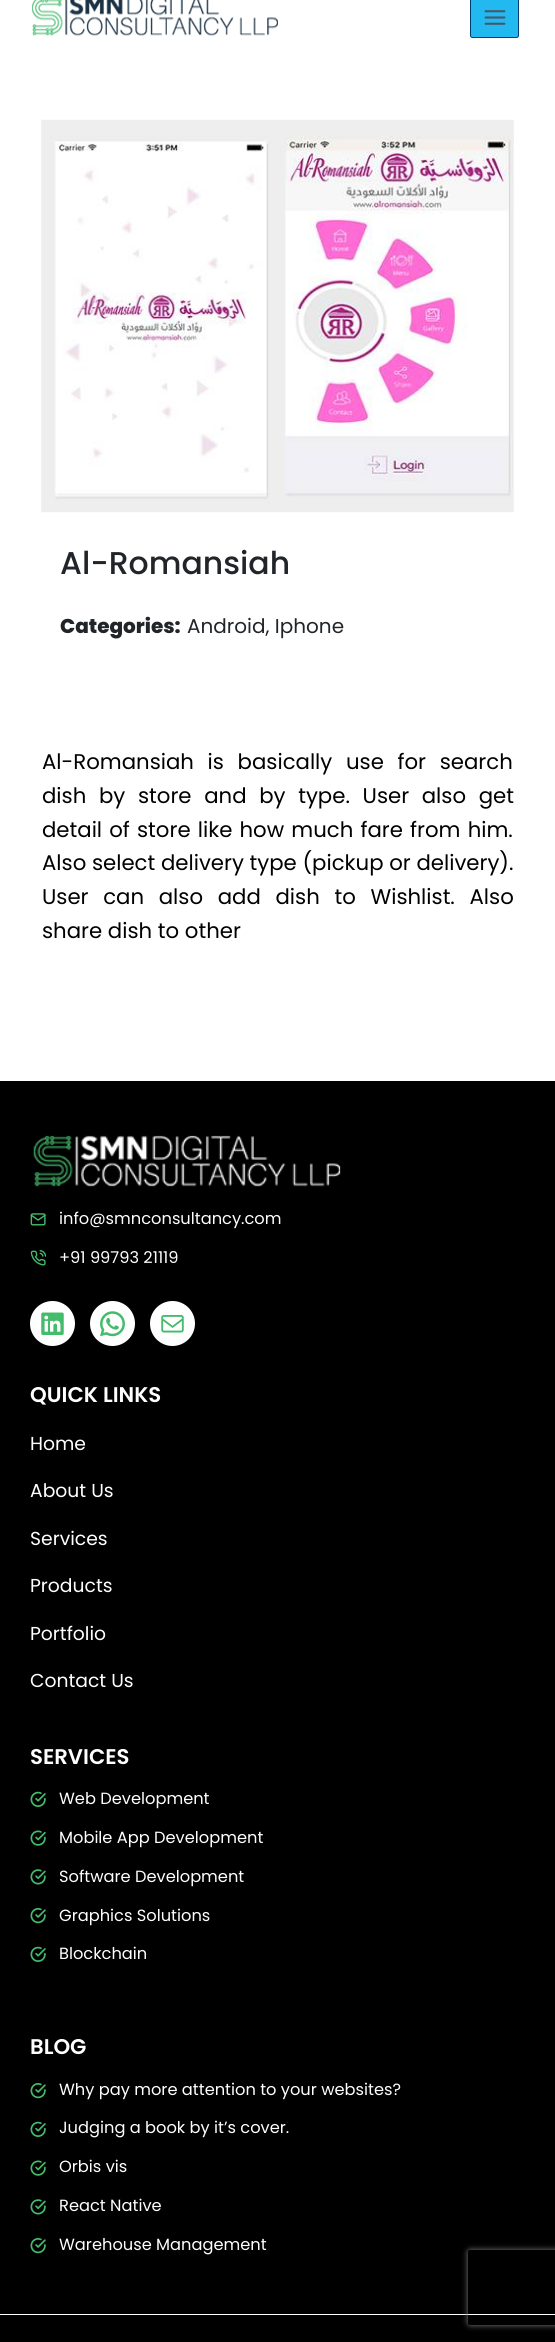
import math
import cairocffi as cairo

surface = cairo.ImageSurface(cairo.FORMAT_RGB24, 555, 2342)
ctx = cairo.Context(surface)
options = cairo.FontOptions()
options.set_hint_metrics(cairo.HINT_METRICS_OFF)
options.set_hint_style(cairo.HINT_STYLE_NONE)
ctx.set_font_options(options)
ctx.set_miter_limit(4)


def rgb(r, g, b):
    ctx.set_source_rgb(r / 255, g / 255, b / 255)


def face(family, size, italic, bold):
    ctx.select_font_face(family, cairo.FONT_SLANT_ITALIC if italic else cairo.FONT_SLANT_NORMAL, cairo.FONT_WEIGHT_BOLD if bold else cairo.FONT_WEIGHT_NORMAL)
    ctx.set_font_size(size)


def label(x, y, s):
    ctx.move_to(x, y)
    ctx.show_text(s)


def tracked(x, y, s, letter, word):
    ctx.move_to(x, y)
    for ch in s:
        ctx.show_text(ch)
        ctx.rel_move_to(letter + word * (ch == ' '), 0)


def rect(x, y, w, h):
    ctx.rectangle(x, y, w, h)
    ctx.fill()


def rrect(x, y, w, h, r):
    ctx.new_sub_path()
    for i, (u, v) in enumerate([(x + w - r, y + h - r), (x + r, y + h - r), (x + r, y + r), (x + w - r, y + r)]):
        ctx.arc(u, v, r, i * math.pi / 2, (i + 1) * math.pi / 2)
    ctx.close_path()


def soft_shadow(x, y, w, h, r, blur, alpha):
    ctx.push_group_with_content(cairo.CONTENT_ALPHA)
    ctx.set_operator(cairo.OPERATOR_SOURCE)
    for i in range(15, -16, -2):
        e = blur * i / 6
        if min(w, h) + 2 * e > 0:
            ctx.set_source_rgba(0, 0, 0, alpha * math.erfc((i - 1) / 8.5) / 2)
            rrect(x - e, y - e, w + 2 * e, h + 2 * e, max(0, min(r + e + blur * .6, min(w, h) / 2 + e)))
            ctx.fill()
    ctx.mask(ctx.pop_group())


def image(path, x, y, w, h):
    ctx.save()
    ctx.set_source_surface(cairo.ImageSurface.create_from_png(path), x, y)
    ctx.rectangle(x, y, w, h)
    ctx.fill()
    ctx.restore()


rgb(255, 255, 255)
ctx.paint()
image('image0.png', 32, 0, 246, 36)
rgb(34, 184, 240)
rrect(470.5, -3.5, 48, 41, 2)
ctx.fill_preserve()
rgb(0, 60, 113)
ctx.set_line_width(1)
ctx.stroke()
image('image1.png', 484, 10, 22, 15)
image('image2.png', 41, 119, 473, 394)
face('Poppins Medium', 31.5, 0, 0)
rgb(33, 37, 41)
label(60, 574, 'Al-Romansiah')
face('Poppins ExtraBold', 20, 0, 0)
label(60, 633, 'Categories:')
face('Poppins', 20, 0, 0)
label(187, 633, 'Android, Iphone')
face('Poppins', 21.25, 0, 0)
rgb(0, 0, 0)
tracked(42, 769, 'Al-Romansiah is basically use for search', 0, 8)
tracked(42, 803, 'dish by store and by type. User also get', 0, 7)
tracked(42, 837, 'detail of store like how much fare from him.', 0, 1.5)
label(42, 870, 'Also select delivery type (pickup or delivery).')
tracked(42, 904, 'User can also add dish to Wishlist. Also', 0, 9)
label(42, 938, 'share dish to other')
rect(0, 1081, 555, 1233)
image('image3.png', 33, 1135, 308, 52)
image('image4.png', 30, 1213, 16, 13)
face('Poppins', 16.25, 0, 0)
rgb(255, 255, 255)
label(59, 1224, 'info@smnconsultancy.com')
image('image5.png', 30, 1250, 16, 16)
label(59, 1263, '+91 99793 21119')
ctx.new_path()
ctx.arc(52.5, 1323.5, 22.5, 0, 2 * math.pi)
ctx.fill()
image('image6.png', 41, 1312, 23, 23)
ctx.arc(112.5, 1323.5, 22.5, 0, 2 * math.pi)
ctx.fill()
image('image7.png', 100, 1311, 25, 26)
ctx.arc(172.5, 1323.5, 22.5, 0, 2 * math.pi)
ctx.fill()
image('image8.png', 161, 1315, 23, 18)
face('Poppins SemiBold', 21.25, 0, 0)
label(30, 1402, 'QUICK LINKS')
face('Poppins', 18.75, 0, 0)
label(30, 1450, 'Home')
label(30, 1497, 'About Us')
label(30, 1545, 'Services')
label(30, 1592, 'Products')
label(30, 1640, 'Portfolio')
label(30, 1687, 'Contact Us')
face('Poppins SemiBold', 21.25, 0, 0)
label(30, 1764, 'SERVICES')
image('image9.png', 30, 1791, 16, 16)
face('Poppins', 16.25, 0, 0)
label(59, 1804, 'Web Development')
image('image10.png', 30, 1830, 16, 16)
label(59, 1843, 'Mobile App Development')
image('image11.png', 30, 1869, 16, 16)
label(59, 1882, 'Software Development')
image('image12.png', 30, 1908, 16, 16)
label(59, 1921, 'Graphics Solutions')
image('image9.png', 30, 1946, 16, 16)
label(59, 1959, 'Blockchain')
face('Poppins SemiBold', 21.25, 0, 0)
label(30, 2054, 'BLOG')
image('image12.png', 30, 2083, 16, 16)
face('Poppins', 16.25, 0, 0)
label(59, 2095, 'Why pay more attention to your websites?')
image('image9.png', 30, 2121, 16, 16)
label(59, 2133, 'Judging a book by it’s cover.')
image('image10.png', 30, 2160, 16, 16)
label(59, 2172, 'Orbis vis')
image('image11.png', 30, 2199, 16, 16)
label(59, 2211, 'React Native')
image('image12.png', 30, 2238, 16, 16)
label(59, 2250, 'Warehouse Management')
rgb(0, 0, 0)
rect(0, 2315, 555, 27)
ctx.save()
ctx.set_fill_rule(cairo.FILL_RULE_EVEN_ODD)
ctx.new_path()
ctx.move_to(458, 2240)
ctx.line_to(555, 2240)
ctx.line_to(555, 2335)
ctx.line_to(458, 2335)
ctx.close_path()
ctx.move_to(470.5, 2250)
ctx.line_to(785.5, 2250)
ctx.curve_to(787, 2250, 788, 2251, 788, 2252.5)
ctx.line_to(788, 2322.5)
ctx.curve_to(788, 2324, 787, 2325, 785.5, 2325)
ctx.line_to(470.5, 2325)
ctx.curve_to(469, 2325, 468, 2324, 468, 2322.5)
ctx.line_to(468, 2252.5)
ctx.curve_to(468, 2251, 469, 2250, 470.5, 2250)
ctx.close_path()
ctx.clip()
rgb(128, 128, 128)
soft_shadow(468, 2250, 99, 75, 2.5, 3, 1)
ctx.restore()
surface.write_to_png('render.png')
